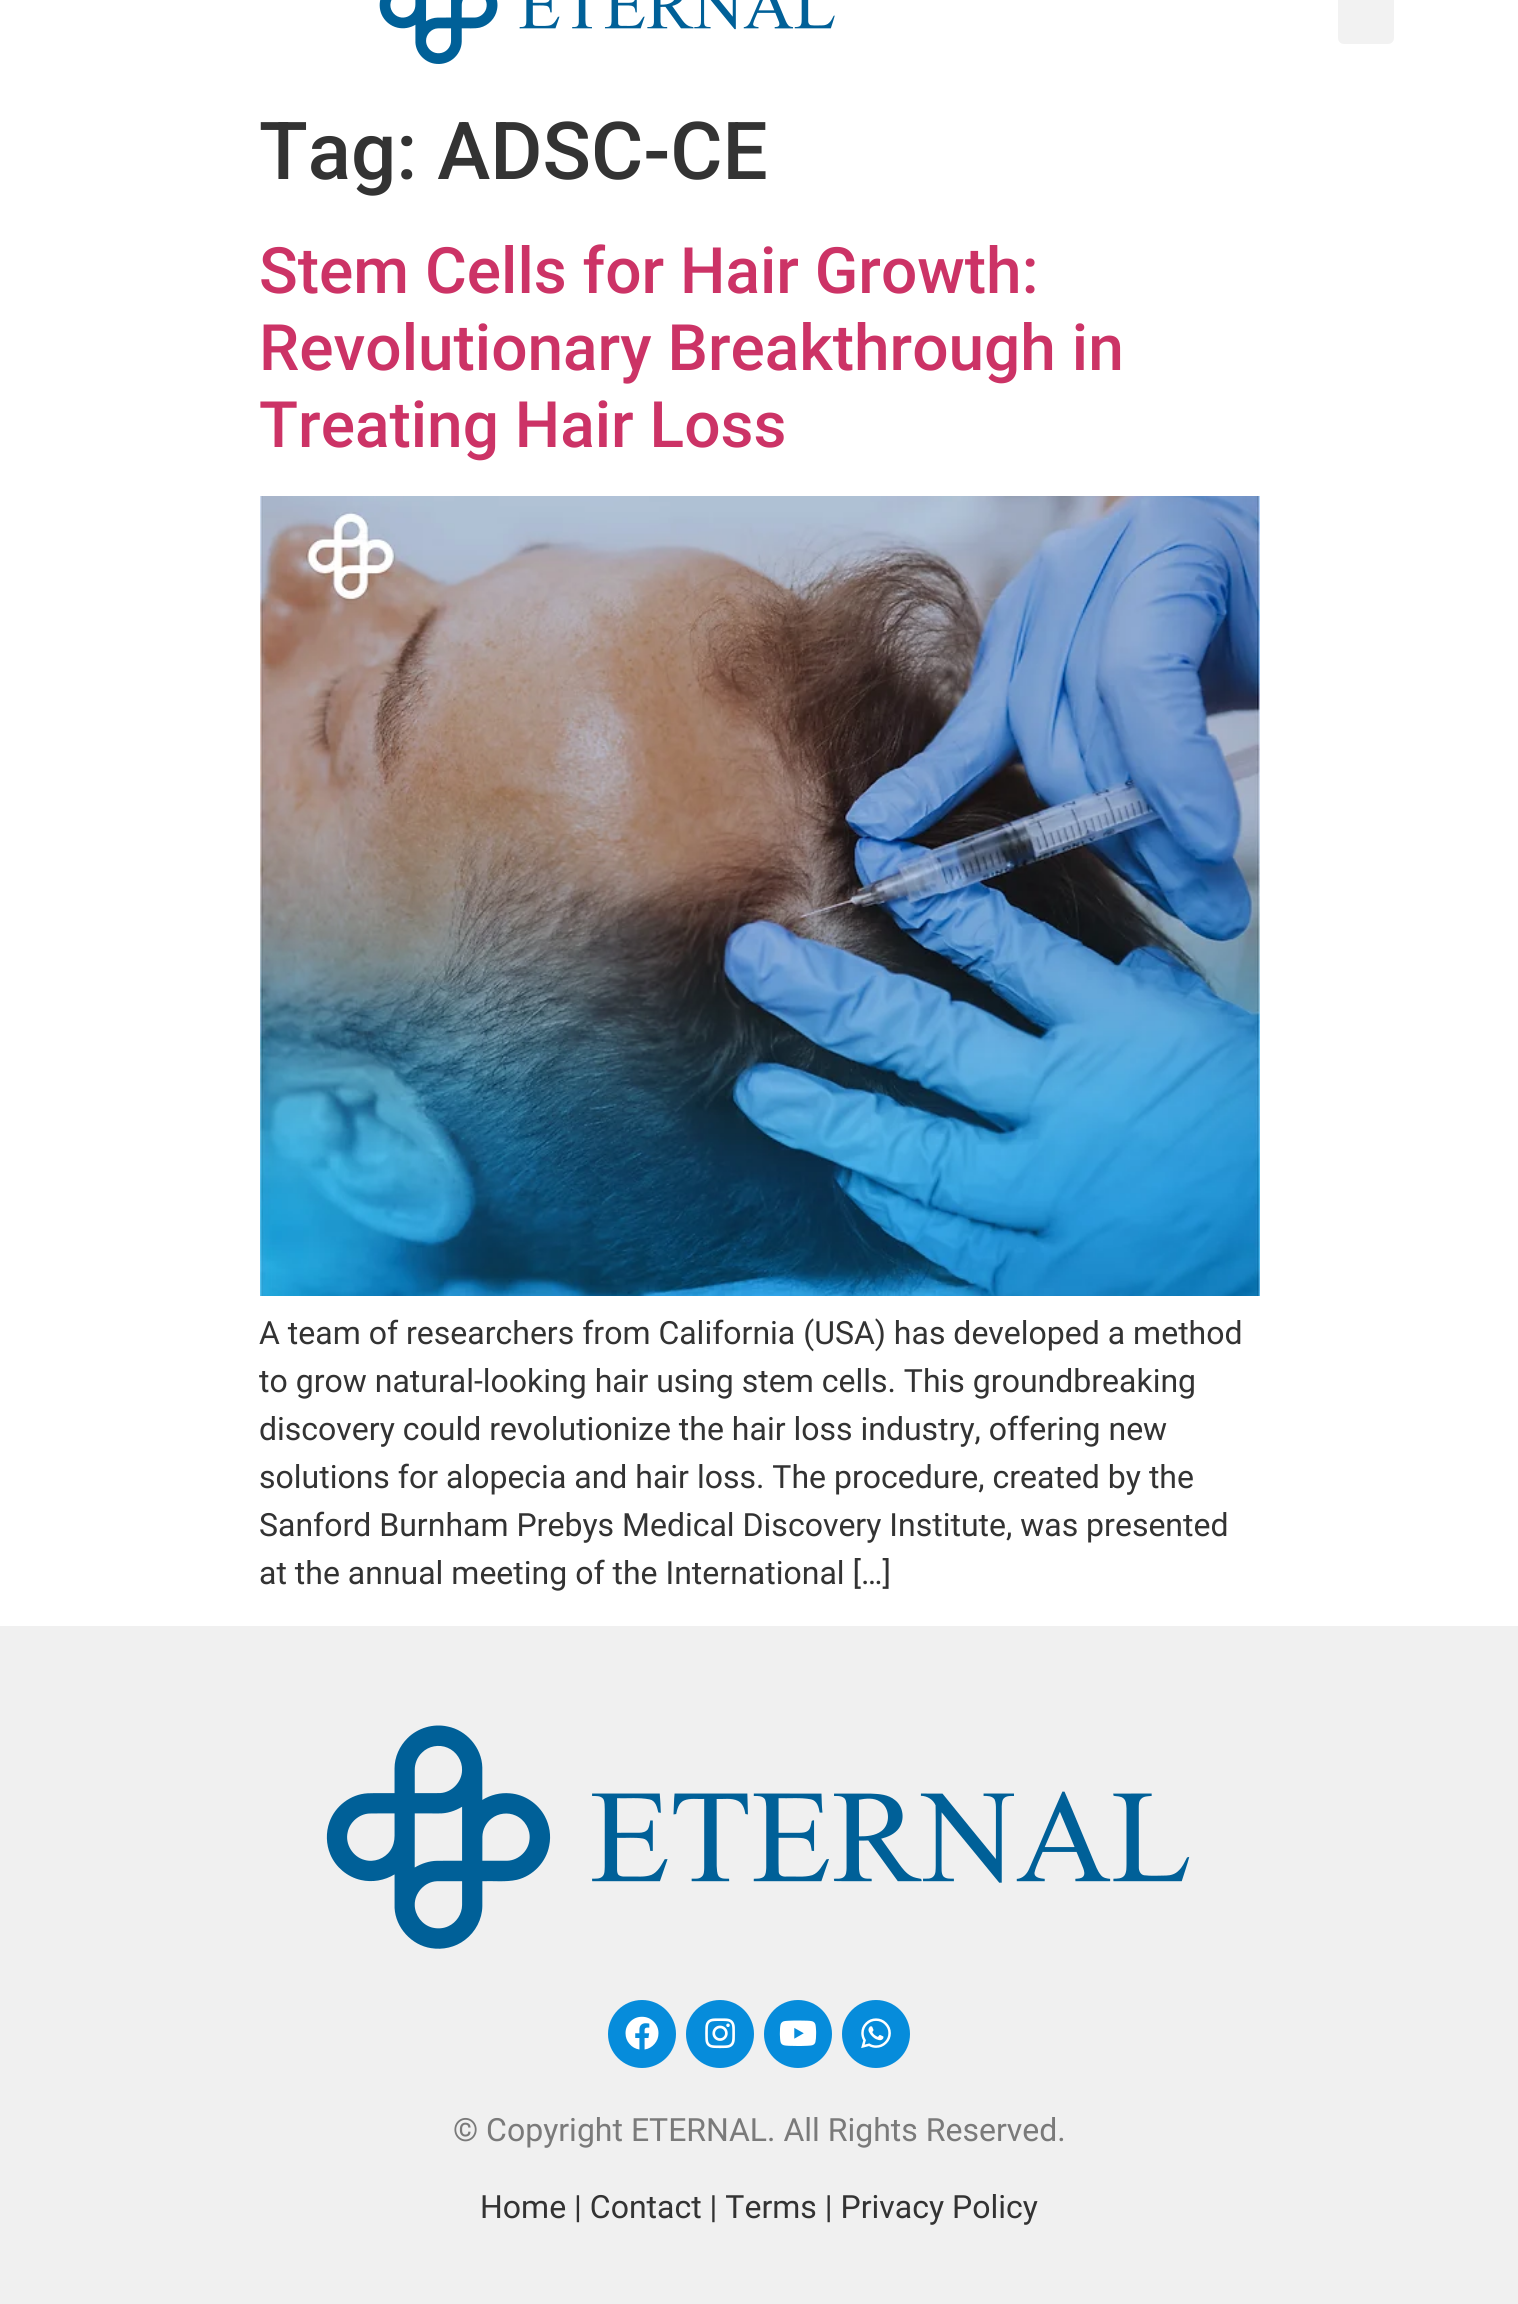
import math
import cairocffi as cairo

surface = cairo.ImageSurface(cairo.FORMAT_RGB24, 1518, 2304)
ctx = cairo.Context(surface)
options = cairo.FontOptions()
options.set_hint_metrics(cairo.HINT_METRICS_OFF)
options.set_hint_style(cairo.HINT_STYLE_NONE)
ctx.set_font_options(options)
ctx.set_miter_limit(4)


def rgb(r, g, b):
    ctx.set_source_rgb(r / 255, g / 255, b / 255)


def face(family, size, italic, bold):
    ctx.select_font_face(family, cairo.FONT_SLANT_ITALIC if italic else cairo.FONT_SLANT_NORMAL, cairo.FONT_WEIGHT_BOLD if bold else cairo.FONT_WEIGHT_NORMAL)
    ctx.set_font_size(size)


def label(x, y, s):
    ctx.move_to(x, y)
    ctx.show_text(s)


def rect(x, y, w, h):
    ctx.rectangle(x, y, w, h)
    ctx.fill()


def rrect(x, y, w, h, r):
    ctx.new_sub_path()
    for i, (u, v) in enumerate([(x + w - r, y + h - r), (x + r, y + h - r), (x + r, y + r), (x + w - r, y + r)]):
        ctx.arc(u, v, r, i * math.pi / 2, (i + 1) * math.pi / 2)
    ctx.close_path()


def image(path, x, y, w, h):
    ctx.save()
    ctx.set_source_surface(cairo.ImageSurface.create_from_png(path), x, y)
    ctx.rectangle(x, y, w, h)
    ctx.fill()
    ctx.restore()


rgb(255, 255, 255)
ctx.paint()
image('image0.png', 379, 0, 456, 64)
rgb(242, 242, 242)
rrect(1338, -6, 56, 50, 6)
ctx.fill()
face('Roboto Medium', 80, 0, 0)
rgb(51, 51, 51)
label(259, 179, 'Tag: ADSC-CE')
face('Roboto Medium', 64, 0, 0)
rgb(204, 51, 102)
label(259, 293, 'Stem Cells for Hair Growth:')
label(259, 370, 'Revolutionary Breakthrough in')
label(259, 447, 'Treating Hair Loss')
image('image1.png', 260, 496, 1000, 800)
face('Roboto', 32, 0, 0)
rgb(51, 51, 51)
label(259, 1344, 'A team of researchers from California (USA) has developed a method')
label(259, 1392, 'to grow natural-looking hair using stem cells. This groundbreaking')
label(259, 1440, 'discovery could revolutionize the hair loss industry, offering new')
label(259, 1488, 'solutions for alopecia and hair loss. The procedure, created by the')
label(259, 1536, 'Sanford Burnham Prebys Medical Discovery Institute, was presented')
label(259, 1584, 'at the annual meeting of the International […]')
rgb(240, 240, 240)
rect(0, 1626, 1518, 678)
image('image2.png', 326, 1725, 864, 224)
rgb(6, 140, 219)
ctx.arc(642, 2034, 34, 0, 2 * math.pi)
ctx.fill()
image('image3.png', 625, 2016, 34, 34)
ctx.arc(720, 2034, 34, 0, 2 * math.pi)
ctx.fill()
image('image4.png', 705, 2018, 30, 31)
ctx.arc(798, 2034, 34, 0, 2 * math.pi)
ctx.fill()
image('image5.png', 779, 2020, 38, 26)
ctx.arc(876, 2034, 34, 0, 2 * math.pi)
ctx.fill()
image('image6.png', 861, 2018, 30, 31)
rgb(122, 122, 122)
label(453, 2141, '© Copyright ETERNAL. All Rights Reserved.')
rgb(51, 51, 51)
label(480, 2218, 'Home | Contact | Terms | Privacy Policy')
surface.write_to_png('render.png')
